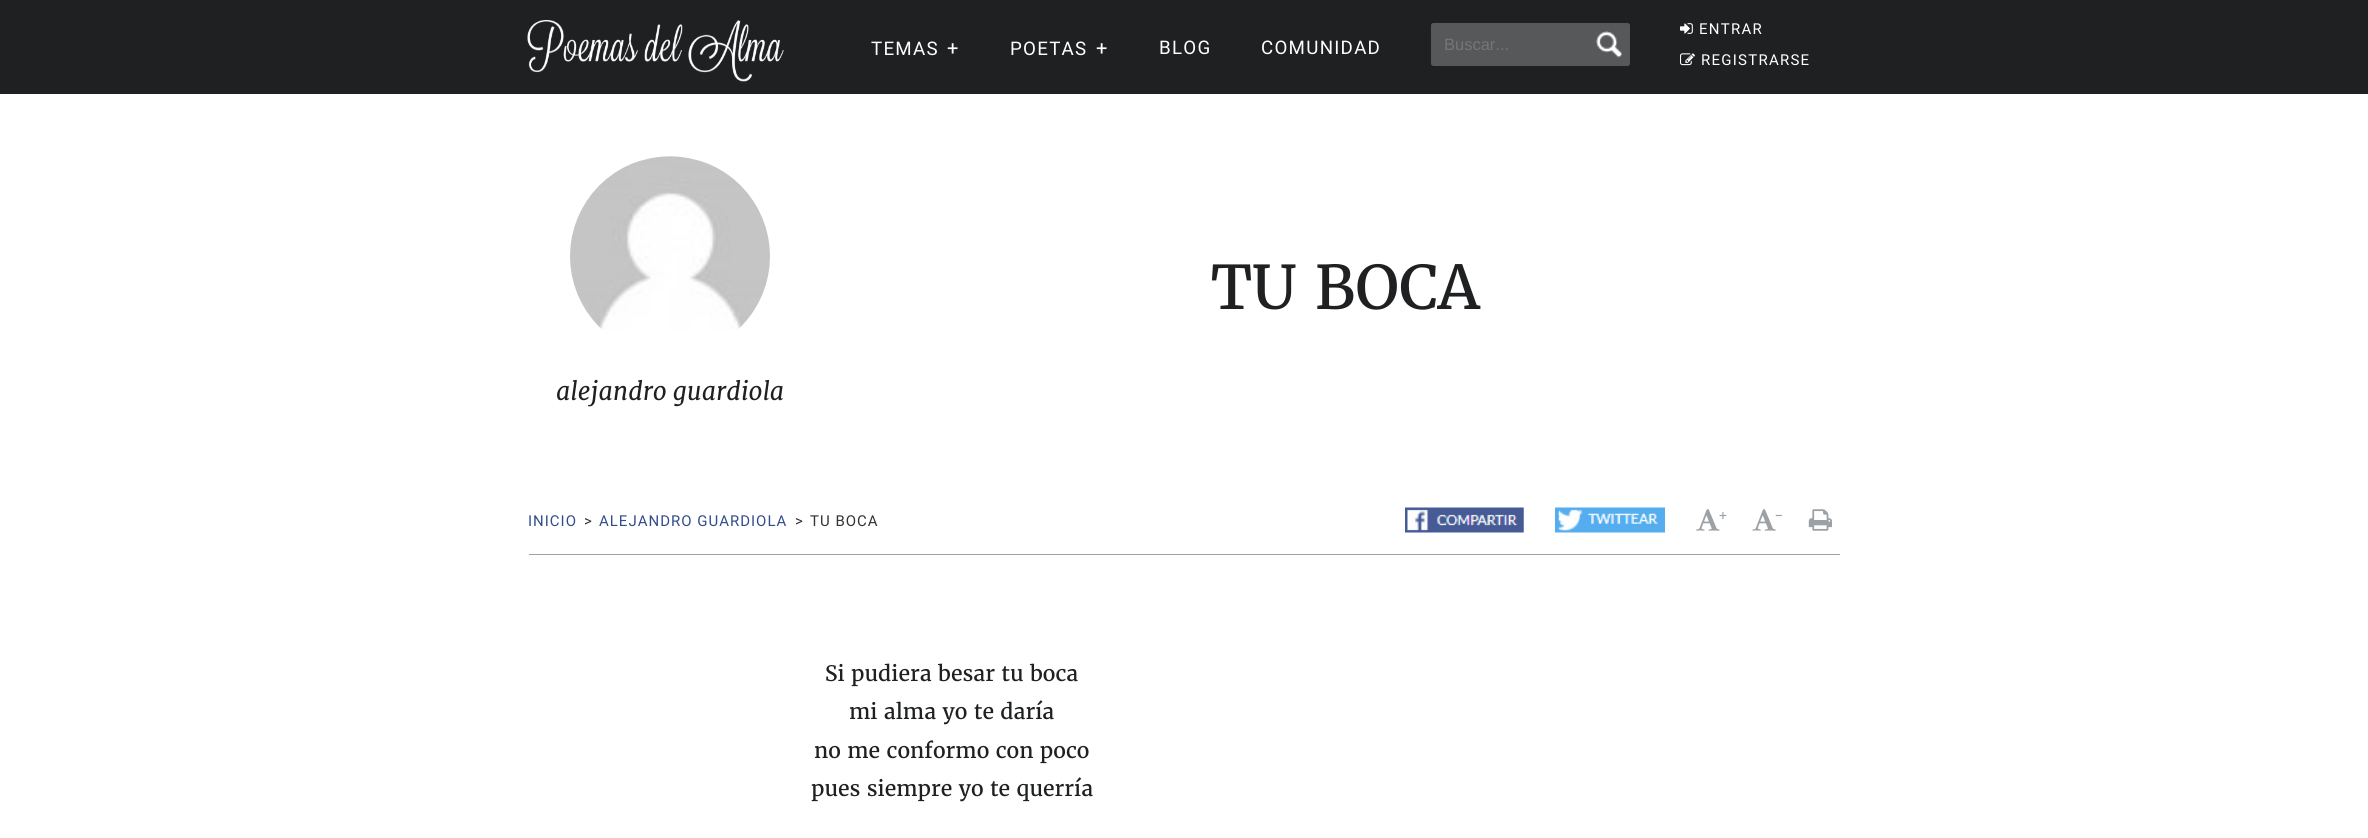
import math
import cairocffi as cairo

surface = cairo.ImageSurface(cairo.FORMAT_RGB24, 2368, 838)
ctx = cairo.Context(surface)
options = cairo.FontOptions()
options.set_hint_metrics(cairo.HINT_METRICS_OFF)
options.set_hint_style(cairo.HINT_STYLE_NONE)
ctx.set_font_options(options)
ctx.set_miter_limit(4)


def rgb(r, g, b):
    ctx.set_source_rgb(r / 255, g / 255, b / 255)


def face(family, size, italic, bold):
    ctx.select_font_face(family, cairo.FONT_SLANT_ITALIC if italic else cairo.FONT_SLANT_NORMAL, cairo.FONT_WEIGHT_BOLD if bold else cairo.FONT_WEIGHT_NORMAL)
    ctx.set_font_size(size)


def label(x, y, s):
    ctx.move_to(x, y)
    ctx.show_text(s)


def tracked(x, y, s, letter, word):
    ctx.move_to(x, y)
    for ch in s:
        ctx.show_text(ch)
        ctx.rel_move_to(letter + word * (ch == ' '), 0)


def rect(x, y, w, h):
    ctx.rectangle(x, y, w, h)
    ctx.fill()


def rrect(x, y, w, h, r):
    ctx.new_sub_path()
    for i, (u, v) in enumerate([(x + w - r, y + h - r), (x + r, y + h - r), (x + r, y + r), (x + w - r, y + r)]):
        ctx.arc(u, v, r, i * math.pi / 2, (i + 1) * math.pi / 2)
    ctx.close_path()


def image(path, x, y, w, h):
    ctx.save()
    ctx.set_source_surface(cairo.ImageSurface.create_from_png(path), x, y)
    ctx.rectangle(x, y, w, h)
    ctx.fill()
    ctx.restore()


rgb(31, 32, 33)
ctx.paint()
image('image0.png', 527, 20, 257, 62)
face('Roboto', 18.75, 0, 0)
rgb(255, 255, 255)
tracked(871, 55, 'TEMAS', 1.25, 0)
face('Roboto', 20, 0, 0)
tracked(947, 55, '+', 1.25, 0)
face('Roboto', 18.75, 0, 0)
tracked(1010, 55, 'POETAS', 1.25, 0)
face('Roboto', 20, 0, 0)
tracked(1096, 55, '+', 1.25, 0)
face('Roboto', 18.75, 0, 0)
tracked(1159, 54, 'BLOG', 1.25, 0)
tracked(1261, 54, 'COMUNIDAD', 1.25, 0)
rgb(87, 88, 89)
rrect(1431, 23, 199, 43, 2.5)
ctx.fill()
image('image1.png', 1596, 31, 27, 27)
face('Liberation Sans', 16.5, 0, 0)
rgb(117, 117, 117)
label(1444, 50, 'Buscar...')
image('image2.png', 1680, 23, 13, 11)
face('Roboto', 15, 0, 0)
rgb(255, 255, 255)
tracked(1699, 34, 'ENTRAR', 1.25, 0)
image('image3.png', 1680, 53, 15, 13)
tracked(1701, 65, 'REGISTRARSE', 1.25, 0)
rect(0, 94, 2368, 744)
face('Merriweather', 60, 0, 0)
rgb(31, 32, 33)
label(1211, 309, 'TU BOCA')
image('image4.png', 570, 156, 200, 174)
face('Merriweather', 25, 1, 0)
label(556, 400, 'alejandro guardiola')
rgb(156, 161, 166)
rect(529, 554, 1311, 1)
face('Roboto', 15, 0, 0)
rgb(50, 76, 140)
tracked(528, 526, 'INICIO', 1, 0)
rgb(51, 51, 51)
tracked(584, 526, '>', 1, 0)
rgb(50, 76, 140)
tracked(599, 526, 'ALEJANDRO GUARDIOLA', 1, 0)
rgb(51, 51, 51)
tracked(795, 526, '>', 1, 0)
tracked(810, 526, 'TU BOCA', 1, 0)
image('image5.png', 1405, 507, 119, 26)
image('image6.png', 1555, 507, 110, 26)
image('image7.png', 1696, 509, 24, 22)
face('Merriweather', 15, 0, 0)
rgb(156, 161, 166)
label(1718, 520, '+')
image('image8.png', 1752, 509, 24, 22)
label(1774, 520, '-')
image('image9.png', 1808, 509, 24, 22)
face('Merriweather', 21.25, 0, 0)
rgb(31, 32, 33)
label(825, 681, 'Si pudiera besar tu boca')
label(849, 719, 'mi alma yo te daría')
label(814, 758, 'no me conformo con poco')
label(811, 796, 'pues siempre yo te querría')
surface.write_to_png('render.png')
